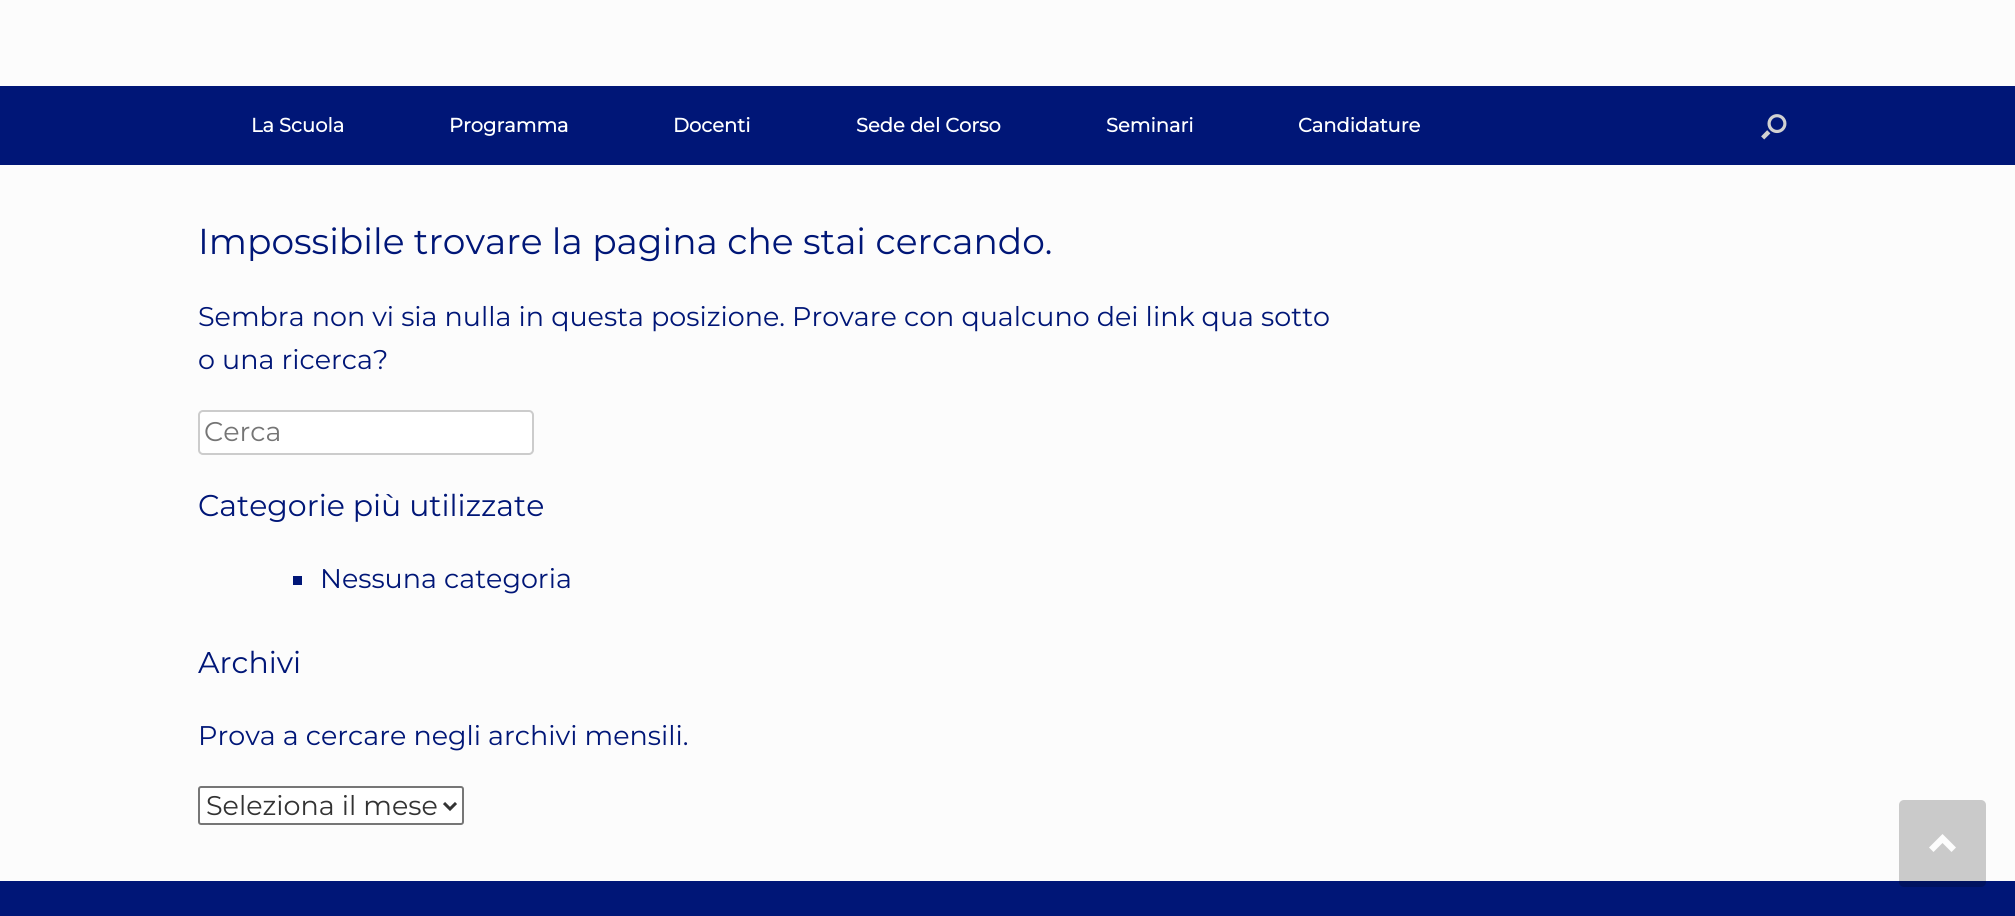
import math
import cairocffi as cairo

surface = cairo.ImageSurface(cairo.FORMAT_RGB24, 2015, 916)
ctx = cairo.Context(surface)
options = cairo.FontOptions()
options.set_hint_metrics(cairo.HINT_METRICS_OFF)
options.set_hint_style(cairo.HINT_STYLE_NONE)
ctx.set_font_options(options)
ctx.set_miter_limit(4)


def rgb(r, g, b):
    ctx.set_source_rgb(r / 255, g / 255, b / 255)


def face(family, size, italic, bold):
    ctx.select_font_face(family, cairo.FONT_SLANT_ITALIC if italic else cairo.FONT_SLANT_NORMAL, cairo.FONT_WEIGHT_BOLD if bold else cairo.FONT_WEIGHT_NORMAL)
    ctx.set_font_size(size)


def label(x, y, s):
    ctx.move_to(x, y)
    ctx.show_text(s)


def rect(x, y, w, h):
    ctx.rectangle(x, y, w, h)
    ctx.fill()


def rrect(x, y, w, h, r):
    ctx.new_sub_path()
    for i, (u, v) in enumerate([(x + w - r, y + h - r), (x + r, y + h - r), (x + r, y + r), (x + w - r, y + r)]):
        ctx.arc(u, v, r, i * math.pi / 2, (i + 1) * math.pi / 2)
    ctx.close_path()


def image(path, x, y, w, h):
    ctx.save()
    ctx.set_source_surface(cairo.ImageSurface.create_from_png(path), x, y)
    ctx.rectangle(x, y, w, h)
    ctx.fill()
    ctx.restore()


rgb(0, 22, 119)
ctx.paint()
rgb(252, 252, 252)
rect(0, 0, 2015, 86)
face('Montserrat', 19.5, 0, 1)
rgb(255, 255, 255)
label(251, 132, 'La Scuola')
label(449, 132, 'Programma')
label(673, 132, 'Docenti')
label(856, 132, 'Sede del Corso')
label(1106, 132, 'Seminari')
label(1298, 132, 'Candidature')
image('image0.png', 1761, 114, 26, 26)
rgb(252, 252, 252)
rect(0, 165, 2015, 716)
face('Montserrat Thin', 36, 0, 0)
rgb(0, 22, 119)
label(198, 254, 'Impossibile trovare la pagina che stai cercando.')
face('Montserrat Thin', 27, 0, 0)
label(198, 326, 'Sembra non vi sia nulla in questa posizione. Provare con qualcuno dei link qua sotto')
label(198, 369, 'o una ricerca?')
rgb(255, 255, 255)
rrect(199, 411, 334, 43, 4)
ctx.fill_preserve()
rgb(204, 204, 204)
ctx.stroke()
rgb(117, 117, 117)
label(204, 441, 'Cerca')
face('Montserrat Thin', 30, 0, 0)
rgb(0, 22, 119)
label(198, 516, 'Categorie più utilizzate')
rect(293, 576, 9, 9)
face('Montserrat Thin', 27, 0, 0)
label(320, 588, 'Nessuna categoria')
face('Montserrat Thin', 30, 0, 0)
label(198, 673, 'Archivi')
face('Montserrat Thin', 27, 0, 0)
label(198, 745, 'Prova a cercare negli archivi mensili.')
rgb(255, 255, 255)
rrect(199, 787, 264, 37, 2)
ctx.fill_preserve()
rgb(118, 118, 118)
ctx.stroke()
ctx.new_path()
ctx.move_to(444, 803)
ctx.line_to(450, 809)
ctx.line_to(456, 803)
rgb(51, 51, 51)
ctx.set_line_width(3)
ctx.stroke()
label(206, 815, 'Seleziona il mese')
ctx.set_source_rgba(0, 0, 0, 0.2)
rrect(1899, 800, 87, 87, 5)
ctx.fill()
rgb(253, 253, 253)
ctx.new_path()
ctx.move_to(1956, 847.5)
ctx.line_to(1942.5, 834)
ctx.line_to(1929, 847.5)
ctx.line_to(1933.5, 852)
ctx.line_to(1942.5, 843)
ctx.line_to(1951.5, 852)
ctx.close_path()
ctx.fill()
surface.write_to_png('render.png')
